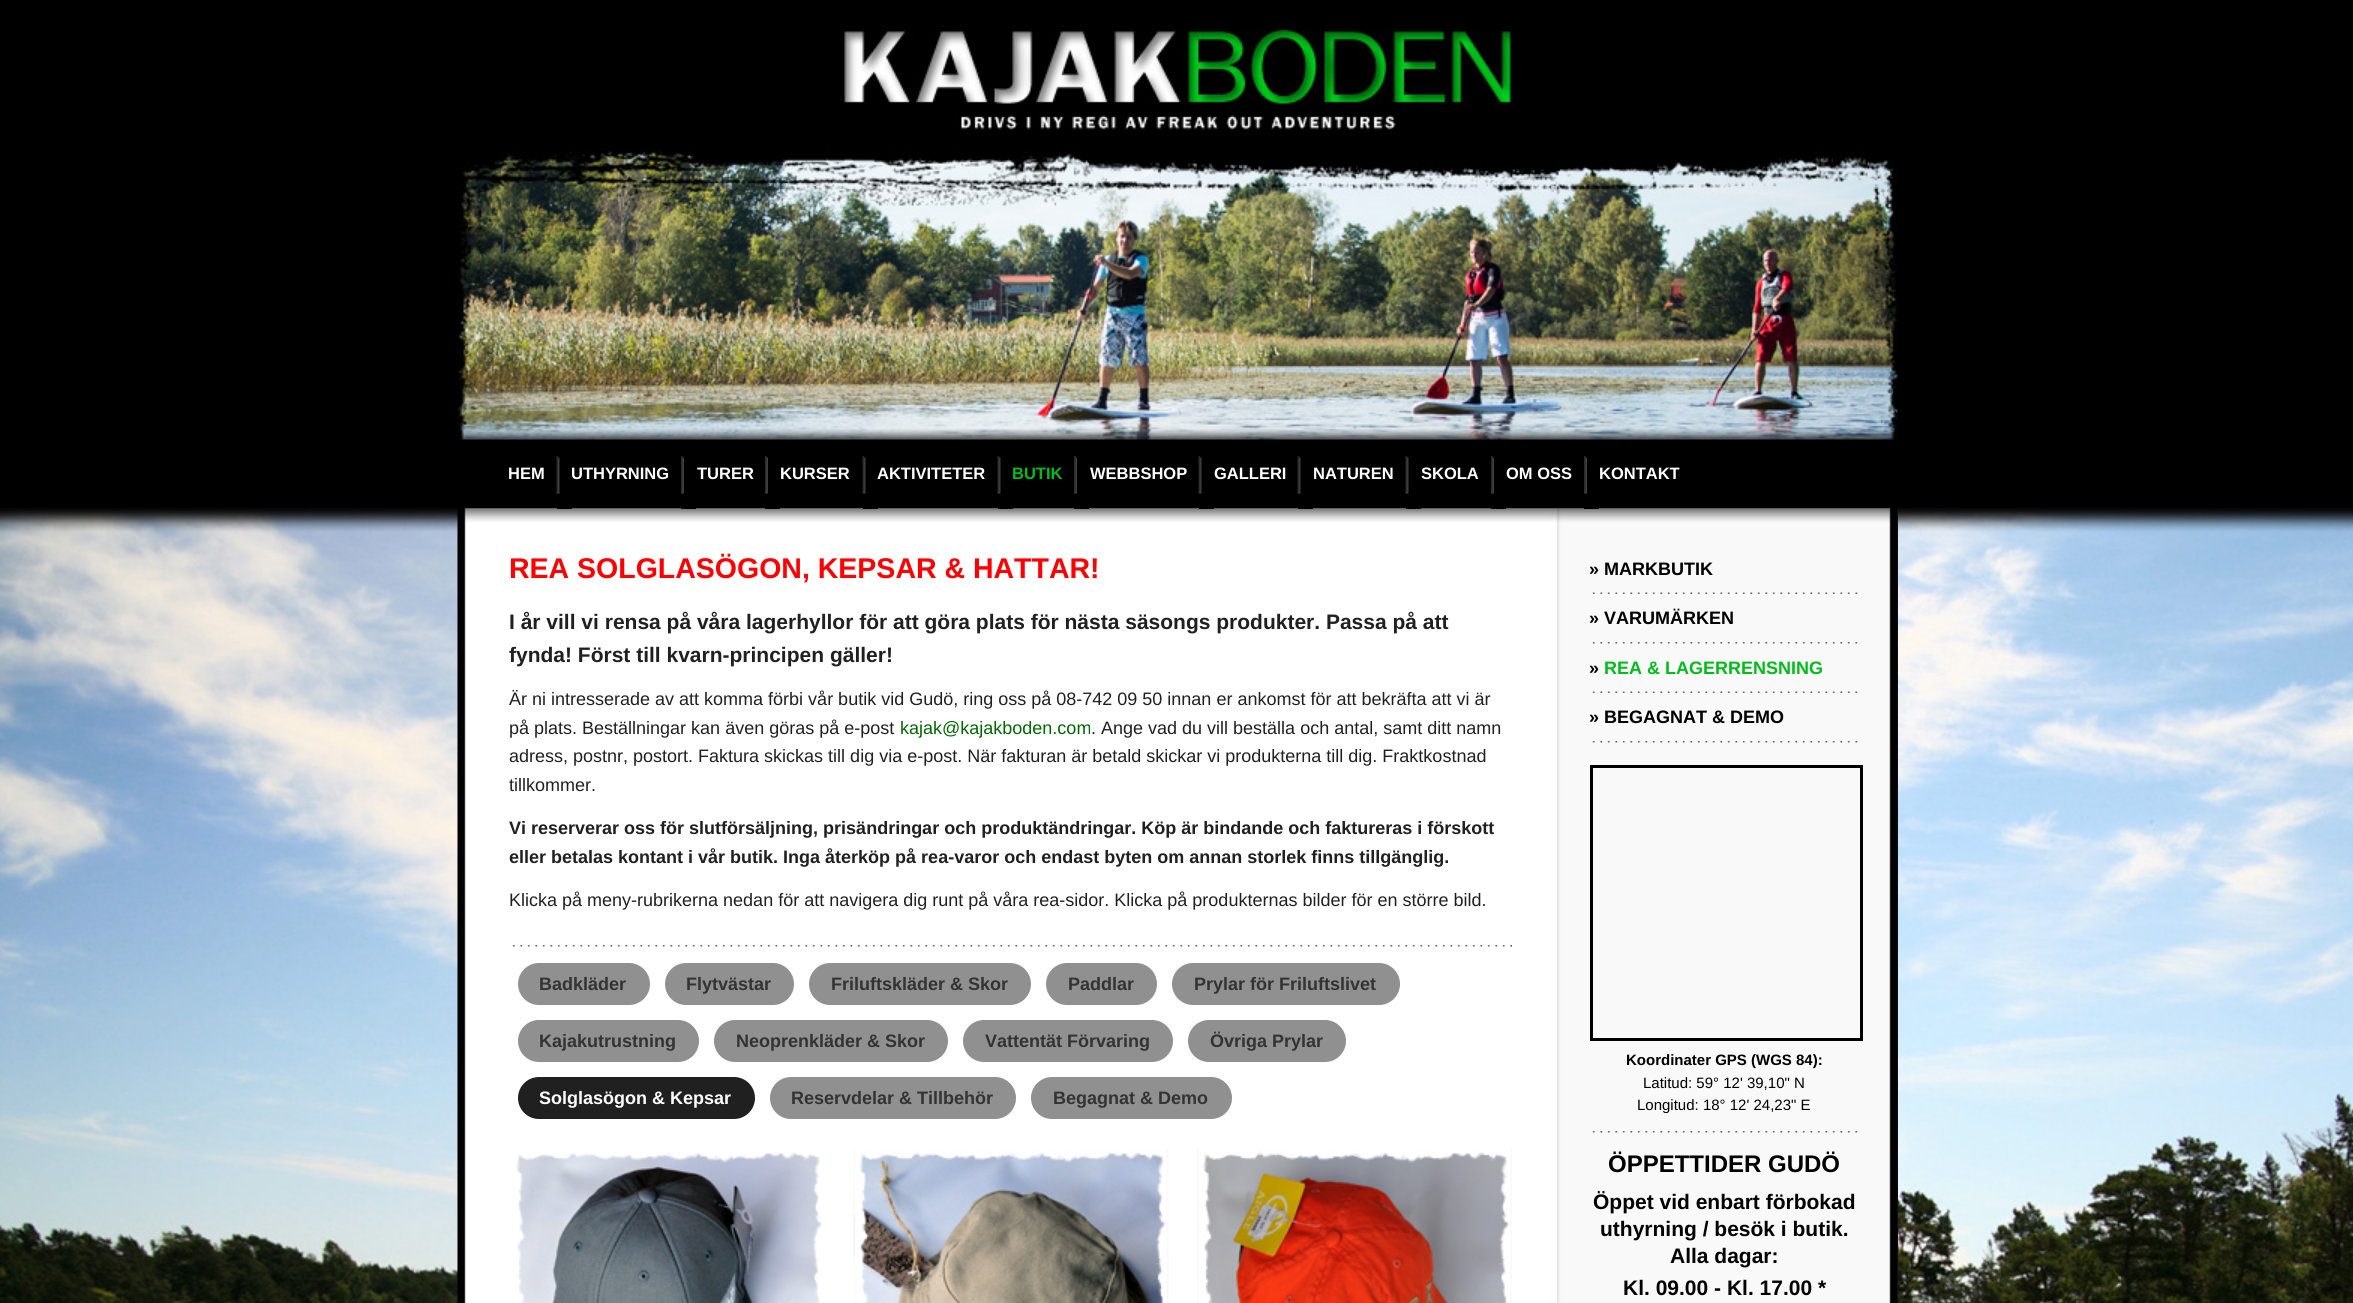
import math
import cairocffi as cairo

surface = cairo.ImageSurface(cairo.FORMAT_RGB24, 2353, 1303)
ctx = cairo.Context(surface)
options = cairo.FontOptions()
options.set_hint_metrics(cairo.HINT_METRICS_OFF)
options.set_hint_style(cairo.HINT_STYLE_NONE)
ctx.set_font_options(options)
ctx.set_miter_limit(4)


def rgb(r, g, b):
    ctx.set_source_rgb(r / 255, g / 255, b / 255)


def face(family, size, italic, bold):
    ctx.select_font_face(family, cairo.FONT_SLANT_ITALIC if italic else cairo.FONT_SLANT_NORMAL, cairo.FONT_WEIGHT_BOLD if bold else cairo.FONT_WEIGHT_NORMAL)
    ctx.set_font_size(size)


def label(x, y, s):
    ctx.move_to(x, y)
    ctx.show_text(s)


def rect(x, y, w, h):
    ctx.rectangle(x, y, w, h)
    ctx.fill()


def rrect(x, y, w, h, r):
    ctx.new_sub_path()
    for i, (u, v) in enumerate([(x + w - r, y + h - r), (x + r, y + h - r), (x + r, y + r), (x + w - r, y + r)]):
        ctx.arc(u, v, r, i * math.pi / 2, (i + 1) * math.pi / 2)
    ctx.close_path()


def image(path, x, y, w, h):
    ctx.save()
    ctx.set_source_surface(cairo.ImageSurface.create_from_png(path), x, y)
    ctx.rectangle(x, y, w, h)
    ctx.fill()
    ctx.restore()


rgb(0, 0, 0)
ctx.paint()
image('image0.png', 844, 30, 668, 100)
image('image1.png', 457, 148, 1441, 293)
face('Liberation Sans', 16.5, 0, 1)
rgb(255, 255, 255)
label(508, 479, 'HEM')
image('image5.png', 0, 508, 2353, 795)
image('image6.png', 0, 509, 2353, 13)
rgb(32, 32, 32)
rect(1897, 509, 1, 794)
image('image7.png', 457, 508, 1441, 795)
image('image8.png', 464, 508, 1427, 14)
rgb(0, 0, 0)
rect(557, 508, 15, 1)
image('image2.png', 556, 456, 4, 38)
rgb(255, 255, 255)
label(571, 479, 'UTHYRNING')
rgb(0, 0, 0)
rect(681, 508, 15, 1)
image('image3.png', 681, 456, 3, 38)
rgb(255, 255, 255)
label(697, 479, 'TURER')
rgb(0, 0, 0)
rect(765, 508, 15, 1)
image('image3.png', 765, 456, 3, 38)
rgb(255, 255, 255)
label(780, 479, 'KURSER')
rgb(0, 0, 0)
rect(863, 508, 15, 1)
image('image2.png', 862, 456, 4, 38)
rgb(255, 255, 255)
label(877, 479, 'AKTIVITETER')
rgb(0, 0, 0)
rect(998, 508, 15, 1)
image('image2.png', 997, 456, 4, 38)
rgb(2, 188, 27)
label(1012, 479, 'BUTIK')
rgb(0, 0, 0)
rect(1074, 508, 15, 1)
image('image4.png', 1074, 456, 3, 38)
rgb(255, 255, 255)
label(1090, 479, 'WEBBSHOP')
rgb(0, 0, 0)
rect(1199, 508, 15, 1)
image('image2.png', 1198, 456, 4, 38)
rgb(255, 255, 255)
label(1214, 479, 'GALLERI')
rgb(0, 0, 0)
rect(1298, 508, 15, 1)
image('image2.png', 1297, 456, 4, 38)
rgb(255, 255, 255)
label(1313, 479, 'NATUREN')
rgb(0, 0, 0)
rect(1406, 508, 15, 1)
image('image2.png', 1405, 456, 4, 38)
rgb(255, 255, 255)
label(1421, 479, 'SKOLA')
rgb(0, 0, 0)
rect(1491, 508, 15, 1)
image('image4.png', 1491, 456, 3, 38)
rgb(255, 255, 255)
label(1506, 479, 'OM OSS')
rgb(0, 0, 0)
rect(1584, 508, 15, 1)
image('image3.png', 1584, 456, 3, 38)
rgb(255, 255, 255)
label(1599, 479, 'KONTAKT')
face('Liberation Sans', 28.5, 0, 1)
rgb(255, 0, 0)
label(509, 578, 'REA SOLGLASÖGON, KEPSAR & HATTAR!')
face('Liberation Sans', 21, 0, 1)
rgb(32, 32, 32)
label(509, 629, 'I år vill vi rensa på våra lagerhyllor för att göra plats för nästa säsongs produkter. Passa på att')
label(509, 662, 'fynda! Först till kvarn-principen gäller!')
face('Liberation Sans', 18, 0, 0)
label(509, 705, 'Är ni intresserade av att komma förbi vår butik vid Gudö, ring oss på 08-742 09 50 innan er ankomst för att bekräfta att vi är')
label(509, 734, 'på plats. Beställningar kan även göras på e-post')
rgb(0, 102, 0)
label(900, 734, 'kajak@kajakboden.com')
rgb(32, 32, 32)
label(1091, 734, '. Ange vad du vill beställa och antal, samt ditt namn')
label(509, 762, 'adress, postnr, postort. Faktura skickas till dig via e-post. När fakturan är betald skickar vi produkterna till dig. Fraktkostnad')
label(509, 791, 'tillkommer.')
face('Liberation Sans', 18, 0, 1)
label(509, 834, 'Vi reserverar oss för slutförsäljning, prisändringar och produktändringar. Köp är bindande och faktureras i förskott')
label(509, 863, 'eller betalas kontant i vår butik. Inga återköp på rea-varor och endast byten om annan storlek finns tillgänglig.')
face('Liberation Sans', 18, 0, 0)
label(509, 906, 'Klicka på meny-rubrikerna nedan för att navigera dig runt på våra rea-sidor. Klicka på produkternas bilder för en större bild.')
image('image9.png', 512, 945, 1000, 2)
rgb(144, 144, 144)
rrect(522, 967, 124, 34, 17)
ctx.fill_preserve()
ctx.set_line_width(8)
ctx.stroke()
face('Liberation Sans', 18, 0, 1)
rgb(51, 51, 51)
label(539, 990, 'Badkläder')
rgb(144, 144, 144)
rrect(669, 967, 121, 34, 17)
ctx.fill_preserve()
ctx.stroke()
rgb(51, 51, 51)
label(686, 990, 'Flytvästar')
rgb(144, 144, 144)
rrect(813, 967, 214, 34, 17)
ctx.fill_preserve()
ctx.stroke()
rgb(51, 51, 51)
label(831, 990, 'Friluftskläder & Skor')
rgb(144, 144, 144)
rrect(1050, 967, 103, 34, 17)
ctx.fill_preserve()
ctx.stroke()
rgb(51, 51, 51)
label(1068, 990, 'Paddlar')
rgb(144, 144, 144)
rrect(1176, 967, 220, 34, 17)
ctx.fill_preserve()
ctx.stroke()
rgb(51, 51, 51)
label(1194, 990, 'Prylar för Friluftslivet')
rgb(144, 144, 144)
rrect(522, 1024, 173, 34, 17)
ctx.fill_preserve()
ctx.stroke()
rgb(51, 51, 51)
label(539, 1047, 'Kajakutrustning')
rgb(144, 144, 144)
rrect(718, 1024, 226, 34, 17)
ctx.fill_preserve()
ctx.stroke()
rgb(51, 51, 51)
label(736, 1047, 'Neoprenkläder & Skor')
rgb(144, 144, 144)
rrect(967, 1024, 202, 34, 17)
ctx.fill_preserve()
ctx.stroke()
rgb(51, 51, 51)
label(985, 1047, 'Vattentät Förvaring')
rgb(144, 144, 144)
rrect(1192, 1024, 150, 34, 17)
ctx.fill_preserve()
ctx.stroke()
rgb(51, 51, 51)
label(1210, 1047, 'Övriga Prylar')
rgb(32, 32, 32)
rrect(522, 1081, 229, 34, 17)
ctx.fill_preserve()
ctx.stroke()
rgb(255, 255, 255)
label(539, 1104, 'Solglasögon & Kepsar')
rgb(144, 144, 144)
rrect(774, 1081, 238, 34, 17)
ctx.fill_preserve()
ctx.stroke()
rgb(51, 51, 51)
label(791, 1104, 'Reservdelar & Tillbehör')
rgb(144, 144, 144)
rrect(1035, 1081, 193, 34, 17)
ctx.fill_preserve()
ctx.stroke()
rgb(51, 51, 51)
label(1053, 1104, 'Begagnat & Demo')
image('image10.png', 516, 1152, 306, 151)
image('image11.png', 853, 1149, 316, 154)
image('image12.png', 1197, 1149, 315, 154)
rgb(0, 0, 0)
label(1589, 575, '» MARKBUTIK')
image('image13.png', 1592, 592, 266, 2)
label(1589, 624, '» VARUMÄRKEN')
image('image14.png', 1592, 642, 266, 2)
label(1589, 674, '»')
rgb(2, 188, 27)
label(1604, 674, 'REA & LAGERRENSNING')
image('image13.png', 1592, 691, 266, 2)
rgb(0, 0, 0)
label(1589, 723, '» BEGAGNAT & DEMO')
image('image14.png', 1592, 741, 266, 2)
ctx.rectangle(1591.5, 766.5, 270, 273)
ctx.set_line_width(3)
ctx.stroke()
face('Liberation Sans', 15, 0, 1)
label(1626, 1065, 'Koordinater GPS (WGS 84):')
face('Liberation Sans', 15, 0, 0)
label(1643, 1088, 'Latitud: 59° 12\' 39,10" N')
label(1637, 1110, 'Longitud: 18° 12\' 24,23" E')
image('image14.png', 1592, 1131, 266, 2)
face('Liberation Sans', 24, 0, 1)
label(1608, 1172, 'ÖPPETTIDER GUDÖ')
face('Liberation Sans', 21, 0, 1)
label(1593, 1209, 'Öppet vid enbart förbokad')
label(1600, 1236, 'uthyrning / besök i butik.')
label(1670, 1263, 'Alla dagar:')
label(1623, 1295, 'Kl. 09.00 - Kl. 17.00 *')
surface.write_to_png('render.png')
